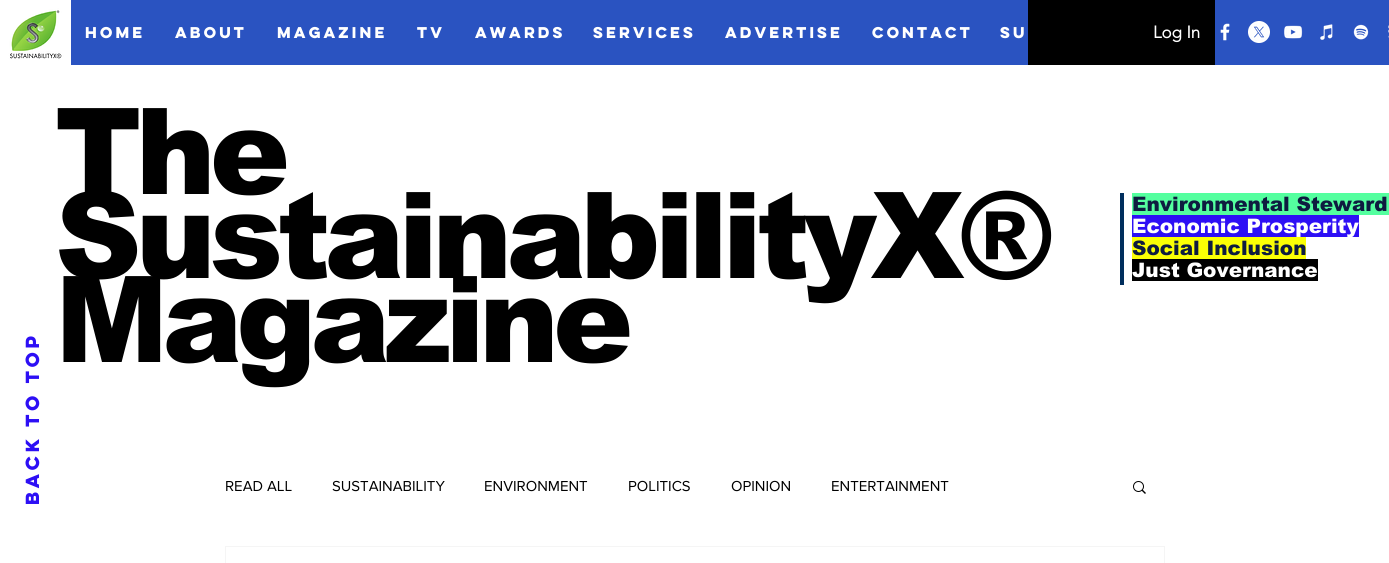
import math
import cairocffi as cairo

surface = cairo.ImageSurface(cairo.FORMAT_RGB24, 1389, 563)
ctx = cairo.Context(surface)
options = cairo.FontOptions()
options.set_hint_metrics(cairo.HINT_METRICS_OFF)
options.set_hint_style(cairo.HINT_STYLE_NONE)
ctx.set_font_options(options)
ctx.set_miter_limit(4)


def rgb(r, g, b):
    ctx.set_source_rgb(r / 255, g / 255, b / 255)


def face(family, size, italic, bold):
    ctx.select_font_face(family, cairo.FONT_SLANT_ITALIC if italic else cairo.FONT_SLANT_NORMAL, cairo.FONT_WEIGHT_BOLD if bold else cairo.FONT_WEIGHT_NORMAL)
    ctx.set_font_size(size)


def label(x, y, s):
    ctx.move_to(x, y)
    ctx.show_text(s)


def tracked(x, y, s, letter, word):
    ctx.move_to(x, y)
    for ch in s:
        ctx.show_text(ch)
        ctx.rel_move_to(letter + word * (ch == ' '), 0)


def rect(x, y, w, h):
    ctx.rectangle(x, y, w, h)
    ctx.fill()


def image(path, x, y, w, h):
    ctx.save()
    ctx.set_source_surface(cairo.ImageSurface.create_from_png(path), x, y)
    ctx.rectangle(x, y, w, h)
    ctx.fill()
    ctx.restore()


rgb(255, 255, 255)
ctx.paint()
image('image0.png', 0, 0, 71, 65)
rgb(42, 83, 193)
rect(71, 0, 957, 65)
face('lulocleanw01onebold', 14, 0, 1)
rgb(255, 255, 255)
label(85, 38, 'HOME')
label(175, 38, 'ABOUT')
label(277, 38, 'MAGAZINE')
label(417, 38, 'TV')
label(475, 38, 'AWARDS')
label(593, 38, 'SERVICES')
label(725, 38, 'ADVERTISE')
label(872, 38, 'CONTACT')
label(1000, 38, 'SU')
rgb(42, 83, 193)
rect(1215, 0, 174, 65)
image('image1.png', 1220, 23, 10, 18)
image('image2.png', 1248, 21, 22, 22)
image('image3.png', 1284, 25, 19, 14)
image('image4.png', 1320, 24, 13, 16)
image('image5.png', 1353, 24, 16, 16)
image('image6.png', 1388, 25, 1, 13)
rgb(0, 0, 0)
rect(1028, 0, 187, 65)
face('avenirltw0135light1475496', 17, 0, 1)
rgb(255, 255, 255)
label(1153, 38, 'Log In')
face('arial Black', 120, 0, 0)
rgb(0, 0, 0)
tracked(55, 194, 'The', -6, 0)
tracked(55, 278, 'SustainabilityX®', -6, 0)
tracked(55, 362, 'Magazine', -6, 0)
rgb(0, 46, 93)
rect(1120, 193, 4, 92)
rgb(84, 255, 159)
rect(1132, 193, 257, 22)
face('arial Black', 20, 0, 0)
rgb(14, 28, 64)
label(1132, 211, 'Environmental Steward')
rgb(45, 15, 245)
rect(1132, 215, 227, 22)
rgb(255, 255, 255)
label(1132, 233, 'Economic Prosperity')
rgb(251, 255, 5)
rect(1132, 237, 174, 22)
rgb(14, 28, 64)
label(1132, 255, 'Social Inclusion')
rgb(0, 0, 0)
rect(1132, 259, 186, 22)
rgb(255, 255, 255)
label(1132, 277, 'Just Governance')
face('lulocleanw01onebold', 17, 0, 1)
rgb(45, 15, 245)
ctx.save()
ctx.translate(39, 505)
ctx.rotate(-90 * math.pi / 180)
label(0, 0, 'Back to Top')
ctx.restore()
face('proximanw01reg', 15, 0, 0)
rgb(0, 0, 0)
label(225, 491, 'READ ALL')
label(332, 491, 'SUSTAINABILITY')
label(484, 491, 'ENVIRONMENT')
label(628, 491, 'POLITICS')
label(731, 491, 'OPINION')
label(831, 491, 'ENTERTAINMENT')
image('image7.png', 1133, 481, 13, 13)
ctx.rectangle(225.5, 546.5, 939, 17)
rgb(245, 245, 245)
ctx.set_line_width(1)
ctx.stroke()
surface.write_to_png('render.png')
